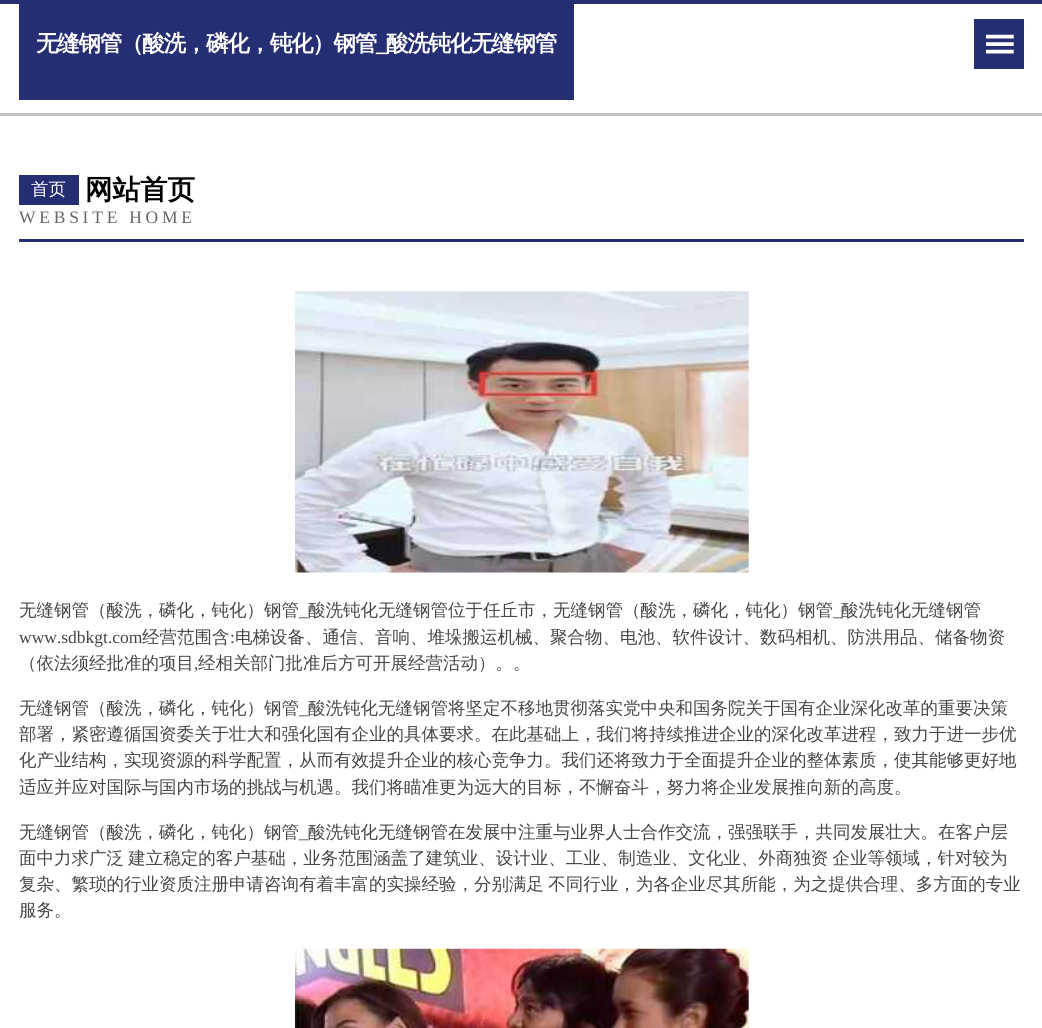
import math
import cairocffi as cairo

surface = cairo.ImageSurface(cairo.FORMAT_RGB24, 1042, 1028)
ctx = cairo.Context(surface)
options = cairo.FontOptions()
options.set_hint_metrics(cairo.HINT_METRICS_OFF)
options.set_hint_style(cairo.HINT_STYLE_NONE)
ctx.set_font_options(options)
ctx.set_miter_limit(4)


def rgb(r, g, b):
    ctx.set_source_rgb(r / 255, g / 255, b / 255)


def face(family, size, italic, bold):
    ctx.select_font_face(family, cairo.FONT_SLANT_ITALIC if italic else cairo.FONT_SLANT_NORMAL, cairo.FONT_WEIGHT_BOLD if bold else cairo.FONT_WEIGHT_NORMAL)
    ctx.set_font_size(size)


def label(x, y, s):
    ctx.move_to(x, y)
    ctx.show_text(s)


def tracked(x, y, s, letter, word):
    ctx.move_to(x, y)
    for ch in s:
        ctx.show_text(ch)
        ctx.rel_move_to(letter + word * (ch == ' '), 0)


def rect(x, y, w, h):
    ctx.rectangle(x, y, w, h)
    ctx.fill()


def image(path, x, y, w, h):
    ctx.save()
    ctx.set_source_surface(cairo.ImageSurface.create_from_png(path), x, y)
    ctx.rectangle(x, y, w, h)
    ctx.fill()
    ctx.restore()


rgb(255, 255, 255)
ctx.paint()
rgb(37, 46, 114)
rect(0, 0, 1042, 4)
rect(19, 4, 555, 96)
face('WenQuanYi Zen Hei', 22.5, 0, 1)
rgb(255, 255, 255)
tracked(36, 51, '无缝钢管（酸洗，磷化，钝化）钢管', -1.25, 0)
face('Liberation Serif', 22.5, 0, 1)
tracked(376, 51, '_', -1.25, 0)
face('WenQuanYi Zen Hei', 22.5, 0, 1)
tracked(386, 51, '酸洗钝化无缝钢管', -1.25, 0)
rgb(37, 46, 114)
rect(974, 19, 50, 50)
face('DejaVu Sans', 38, 0, 0)
rgb(255, 255, 255)
ctx.save()
ctx.translate(986, 31)
ctx.rotate(90 * math.pi / 180)
label(0, 0, 'Ⅲ')
ctx.restore()
rgb(194, 194, 194)
rect(0, 113, 1042, 3)
rgb(37, 46, 114)
rect(19, 239, 1005, 3)
rect(19, 175, 60, 30)
face('WenQuanYi Zen Hei Medium', 17.5, 0, 0)
rgb(255, 255, 255)
label(31, 195, '首页')
face('WenQuanYi Zen Hei', 27.5, 0, 1)
rgb(0, 0, 0)
label(85, 199, '网站首页')
face('Liberation Serif', 17.5, 0, 0)
rgb(102, 102, 102)
tracked(19, 223, 'WEBSITE HOME', 3.75, 0)
image('image0.png', 295, 291, 454, 282)
face('WenQuanYi Zen Hei Medium', 17.5, 0, 0)
rgb(69, 69, 69)
label(19, 616, '无缝钢管（酸洗，磷化，钝化）钢管')
face('Liberation Serif', 17.5, 0, 0)
label(299, 616, '_')
face('WenQuanYi Zen Hei Medium', 17.5, 0, 0)
label(308, 616, '酸洗钝化无缝钢管位于任丘市，无缝钢管（酸洗，磷化，钝化）钢管')
face('Liberation Serif', 17.5, 0, 0)
label(833, 616, '_')
face('WenQuanYi Zen Hei Medium', 17.5, 0, 0)
label(841, 616, '酸洗钝化无缝钢管')
face('Liberation Serif', 17.5, 0, 0)
label(19, 643, 'www.sdbkgt.com')
face('WenQuanYi Zen Hei Medium', 17.5, 0, 0)
label(142, 643, '经营范围含')
face('Liberation Serif', 17.5, 0, 0)
label(230, 643, ':')
face('WenQuanYi Zen Hei Medium', 17.5, 0, 0)
label(235, 643, '电梯设备、通信、音响、堆垛搬运机械、聚合物、电池、软件设计、数码相机、防洪用品、储备物资')
label(19, 669, '（依法须经批准的项目')
face('Liberation Serif', 17.5, 0, 0)
label(194, 669, ',')
face('WenQuanYi Zen Hei Medium', 17.5, 0, 0)
label(198, 669, '经相关部门批准后方可开展经营活动）。。')
label(19, 714, '无缝钢管（酸洗，磷化，钝化）钢管')
face('Liberation Serif', 17.5, 0, 0)
label(299, 714, '_')
face('WenQuanYi Zen Hei Medium', 17.5, 0, 0)
label(308, 714, '酸洗钝化无缝钢管将坚定不移地贯彻落实党中央和国务院关于国有企业深化改革的重要决策')
label(19, 740, '部署，紧密遵循国资委关于壮大和强化国有企业的具体要求。在此基础上，我们将持续推进企业的深化改革进程，致力于进一步优')
label(19, 766, '化产业结构，实现资源的科学配置，从而有效提升企业的核心竞争力。我们还将致力于全面提升企业的整体素质，使其能够更好地')
label(19, 793, '适应并应对国际与国内市场的挑战与机遇。我们将瞄准更为远大的目标，不懈奋斗，努力将企业发展推向新的高度。')
label(19, 838, '无缝钢管（酸洗，磷化，钝化）钢管')
face('Liberation Serif', 17.5, 0, 0)
label(299, 838, '_')
face('WenQuanYi Zen Hei Medium', 17.5, 0, 0)
label(308, 838, '酸洗钝化无缝钢管在发展中注重与业界人士合作交流，强强联手，共同发展壮大。在客户层')
tracked(19, 864, '面中力求广泛 建立稳定的客户基础，业务范围涵盖了建筑业、设计业、工业、制造业、文化业、外商独资 企业等领域，针对较为', 0, -1)
tracked(19, 890, '复杂、繁琐的行业资质注册申请咨询有着丰富的实操经验，分别满足 不同行业，为各企业尽其所能，为之提供合理、多方面的专业', 0, -1)
label(19, 916, '服务。')
image('image1.png', 295, 948, 454, 80)
surface.write_to_png('render.png')
